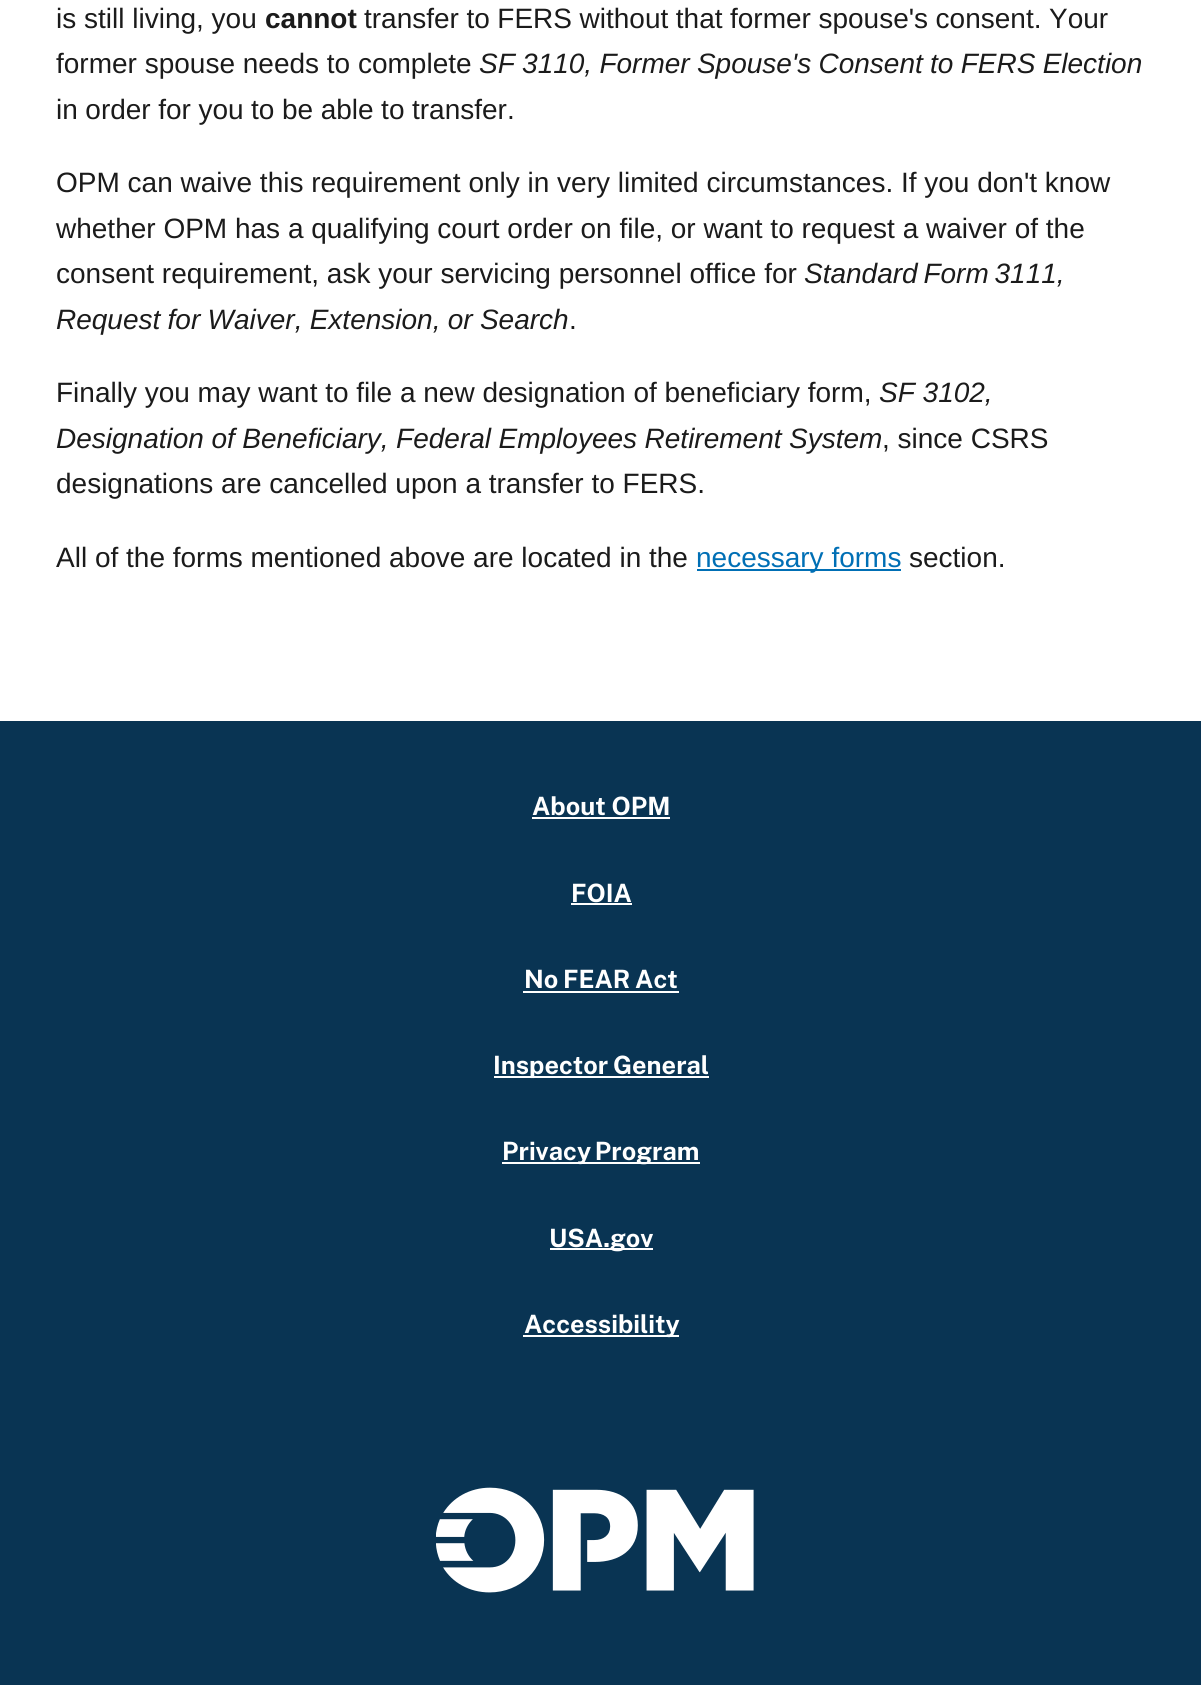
import math
import cairocffi as cairo

surface = cairo.ImageSurface(cairo.FORMAT_RGB24, 1201, 1685)
ctx = cairo.Context(surface)
options = cairo.FontOptions()
options.set_hint_metrics(cairo.HINT_METRICS_OFF)
options.set_hint_style(cairo.HINT_STYLE_NONE)
ctx.set_font_options(options)
ctx.set_miter_limit(4)


def rgb(r, g, b):
    ctx.set_source_rgb(r / 255, g / 255, b / 255)


def face(family, size, italic, bold):
    ctx.select_font_face(family, cairo.FONT_SLANT_ITALIC if italic else cairo.FONT_SLANT_NORMAL, cairo.FONT_WEIGHT_BOLD if bold else cairo.FONT_WEIGHT_NORMAL)
    ctx.set_font_size(size)


def label(x, y, s):
    ctx.move_to(x, y)
    ctx.show_text(s)


def tracked(x, y, s, letter, word):
    ctx.move_to(x, y)
    for ch in s:
        ctx.show_text(ch)
        ctx.rel_move_to(letter + word * (ch == ' '), 0)


def rect(x, y, w, h):
    ctx.rectangle(x, y, w, h)
    ctx.fill()


def image(path, x, y, w, h):
    ctx.save()
    ctx.set_source_surface(cairo.ImageSurface.create_from_png(path), x, y)
    ctx.rectangle(x, y, w, h)
    ctx.fill()
    ctx.restore()


rgb(255, 255, 255)
ctx.paint()
face('Liberation Sans', 28, 0, 0)
rgb(27, 27, 27)
label(56, 28, 'is still living, you')
face('Liberation Sans', 28, 0, 1)
label(265, 28, 'cannot')
face('Liberation Sans', 28, 0, 0)
tracked(364, 28, 'transfer to FERS without that former spouse\'s consent. Your', 0, -0.25)
label(56, 73, 'former spouse needs to complete')
face('Liberation Sans', 28, 1, 0)
tracked(479, 73, 'SF 3110, Former Spouse\'s Consent to FERS Election', 0, -0.5)
face('Liberation Sans', 28, 0, 0)
tracked(56, 119, 'in order for you to be able to transfer.', 0, -0.25)
label(56, 192, 'OPM can waive this requirement only in very limited circumstances. If you don\'t know')
label(56, 238, 'whether OPM has a qualifying court order on file, or want to request a waiver of the')
label(56, 283, 'consent requirement, ask your servicing personnel office for')
face('Liberation Sans', 28, 1, 0)
tracked(804, 283, 'Standard Form 3111,', 0, -2)
tracked(56, 329, 'Request for Waiver, Extension, or Search', 0, -0.5)
face('Liberation Sans', 28, 0, 0)
label(569, 329, '.')
label(56, 402, 'Finally you may want to file a new designation of beneficiary form,')
face('Liberation Sans', 28, 1, 0)
label(879, 402, 'SF 3102,')
tracked(56, 448, 'Designation of Beneficiary, Federal Employees Retirement System', 0, -0.25)
face('Liberation Sans', 28, 0, 0)
label(882, 448, ', since CSRS')
label(56, 493, 'designations are cancelled upon a transfer to FERS.')
label(56, 567, 'All of the forms mentioned above are located in the')
rgb(0, 111, 181)
rect(697, 569, 204, 2)
label(696, 567, 'necessary forms')
rgb(27, 27, 27)
label(909, 567, 'section.')
rgb(9, 52, 83)
rect(0, 721, 1201, 964)
face('Public Sans', 25.25, 0, 1)
rgb(255, 255, 255)
label(532, 815, 'About OPM')
rect(532, 817, 138, 2)
label(571, 902, 'FOIA')
rect(571, 903, 61, 2)
tracked(524, 988, 'No FEAR Act', 0, -1)
rect(523, 991, 156, 2)
rect(494, 1076, 215, 2)
tracked(493, 1074, 'Inspector General', 0, -1)
rect(502, 1162, 198, 2)
tracked(502, 1160, 'Privacy Program', 0, -2)
rect(550, 1248, 103, 2)
label(549, 1247, 'USA.gov')
rect(523, 1335, 156, 2)
label(524, 1333, 'Accessibility')
image('image0.png', 436, 1487, 318, 106)
surface.write_to_png('render.png')
